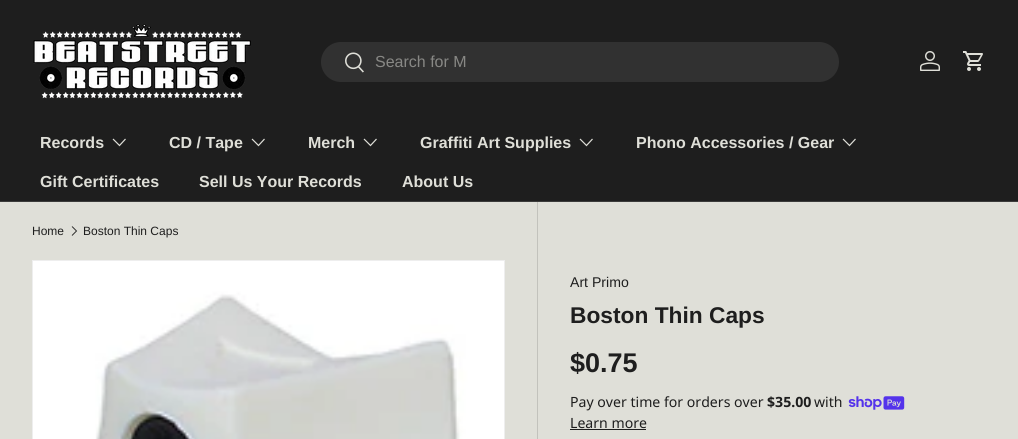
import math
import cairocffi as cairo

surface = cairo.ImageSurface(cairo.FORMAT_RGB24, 1018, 439)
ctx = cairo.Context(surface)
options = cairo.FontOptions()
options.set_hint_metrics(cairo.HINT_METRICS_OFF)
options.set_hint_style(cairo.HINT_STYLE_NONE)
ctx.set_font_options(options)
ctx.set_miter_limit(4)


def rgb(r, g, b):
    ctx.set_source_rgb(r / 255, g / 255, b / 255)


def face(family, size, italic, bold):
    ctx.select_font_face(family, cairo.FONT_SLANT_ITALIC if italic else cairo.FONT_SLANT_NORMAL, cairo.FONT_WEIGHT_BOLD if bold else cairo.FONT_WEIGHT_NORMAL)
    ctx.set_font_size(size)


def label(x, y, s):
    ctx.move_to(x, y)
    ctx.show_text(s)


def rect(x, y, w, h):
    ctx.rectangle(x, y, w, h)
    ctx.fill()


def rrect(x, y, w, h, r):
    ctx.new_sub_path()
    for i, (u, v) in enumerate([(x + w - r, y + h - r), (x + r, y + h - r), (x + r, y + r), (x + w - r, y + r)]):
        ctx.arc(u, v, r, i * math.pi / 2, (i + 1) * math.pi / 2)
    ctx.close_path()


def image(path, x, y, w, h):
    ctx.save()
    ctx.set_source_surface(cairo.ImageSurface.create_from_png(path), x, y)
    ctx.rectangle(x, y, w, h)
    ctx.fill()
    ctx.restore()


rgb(223, 223, 216)
ctx.paint()
rgb(30, 30, 30)
rect(0, 0, 1018, 201)
rgb(59, 59, 58)
rect(0, 201, 1018, 1)
image('image0.png', 33, 24, 218, 75)
rgb(49, 49, 49)
rrect(321, 42, 518, 40, 20)
ctx.fill()
image('image1.png', 345, 52, 19, 21)
face('Liberation Sans', 16, 0, 0)
rgb(136, 136, 133)
label(375, 67, 'Search for M')
image('image2.png', 920, 51, 20, 20)
image('image3.png', 963, 51, 20, 20)
face('Liberation Sans', 16, 0, 1)
rgb(223, 223, 216)
label(40, 148, 'Records')
ctx.new_path()
ctx.move_to(125.5, 139)
ctx.line_to(119.5, 145.5)
ctx.line_to(113, 139)
ctx.set_line_width(1.2)
ctx.stroke()
label(169, 148, 'CD / Tape')
ctx.new_path()
ctx.move_to(264.5, 139)
ctx.line_to(258.5, 145.5)
ctx.line_to(252, 139)
ctx.stroke()
label(308, 148, 'Merch')
ctx.new_path()
ctx.move_to(376.5, 139)
ctx.line_to(370.5, 145.5)
ctx.line_to(364, 139)
ctx.stroke()
label(420, 148, 'Graffiti Art Supplies')
ctx.new_path()
ctx.move_to(592.5, 139)
ctx.line_to(586.5, 145.5)
ctx.line_to(580, 139)
ctx.stroke()
label(636, 148, 'Phono Accessories / Gear')
ctx.new_path()
ctx.move_to(855.5, 139)
ctx.line_to(849.5, 145.5)
ctx.line_to(843, 139)
ctx.stroke()
label(40, 187, 'Gift Certificates')
label(199, 187, 'Sell Us Your Records')
label(402, 187, 'About Us')
face('Liberation Sans', 12, 0, 0)
rgb(30, 30, 30)
label(32, 235, 'Home')
ctx.new_path()
ctx.move_to(72, 226.5)
ctx.line_to(76.5, 231)
ctx.line_to(72, 235.5)
ctx.set_line_width(0.9)
ctx.stroke()
label(83, 235, 'Boston Thin Caps')
ctx.rectangle(32.5, 260.5, 472, 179)
rgb(238, 238, 238)
ctx.set_line_width(1)
ctx.stroke()
image('image4.png', 33, 261, 471, 178)
rgb(194, 194, 188)
rect(537, 202, 1, 237)
face('Liberation Sans', 14.1, 0, 0)
rgb(30, 30, 30)
label(570, 287, 'Art Primo')
face('Liberation Sans', 22.75, 0, 1)
label(570, 323, 'Boston Thin Caps')
face('Liberation Sans', 27, 0, 1)
label(570, 372, '$0.75')
face('Noto Sans', 14.1, 0, 0)
label(570, 407, 'Pay over time for orders over')
face('Noto Sans', 14.1, 0, 1)
label(767, 407, '$35.00')
face('Noto Sans', 14.1, 0, 0)
label(814, 407, 'with')
image('image5.png', 848, 396, 57, 14)
label(570, 428, 'Learn more')
rect(570, 429, 76, 1)
surface.write_to_png('render.png')
